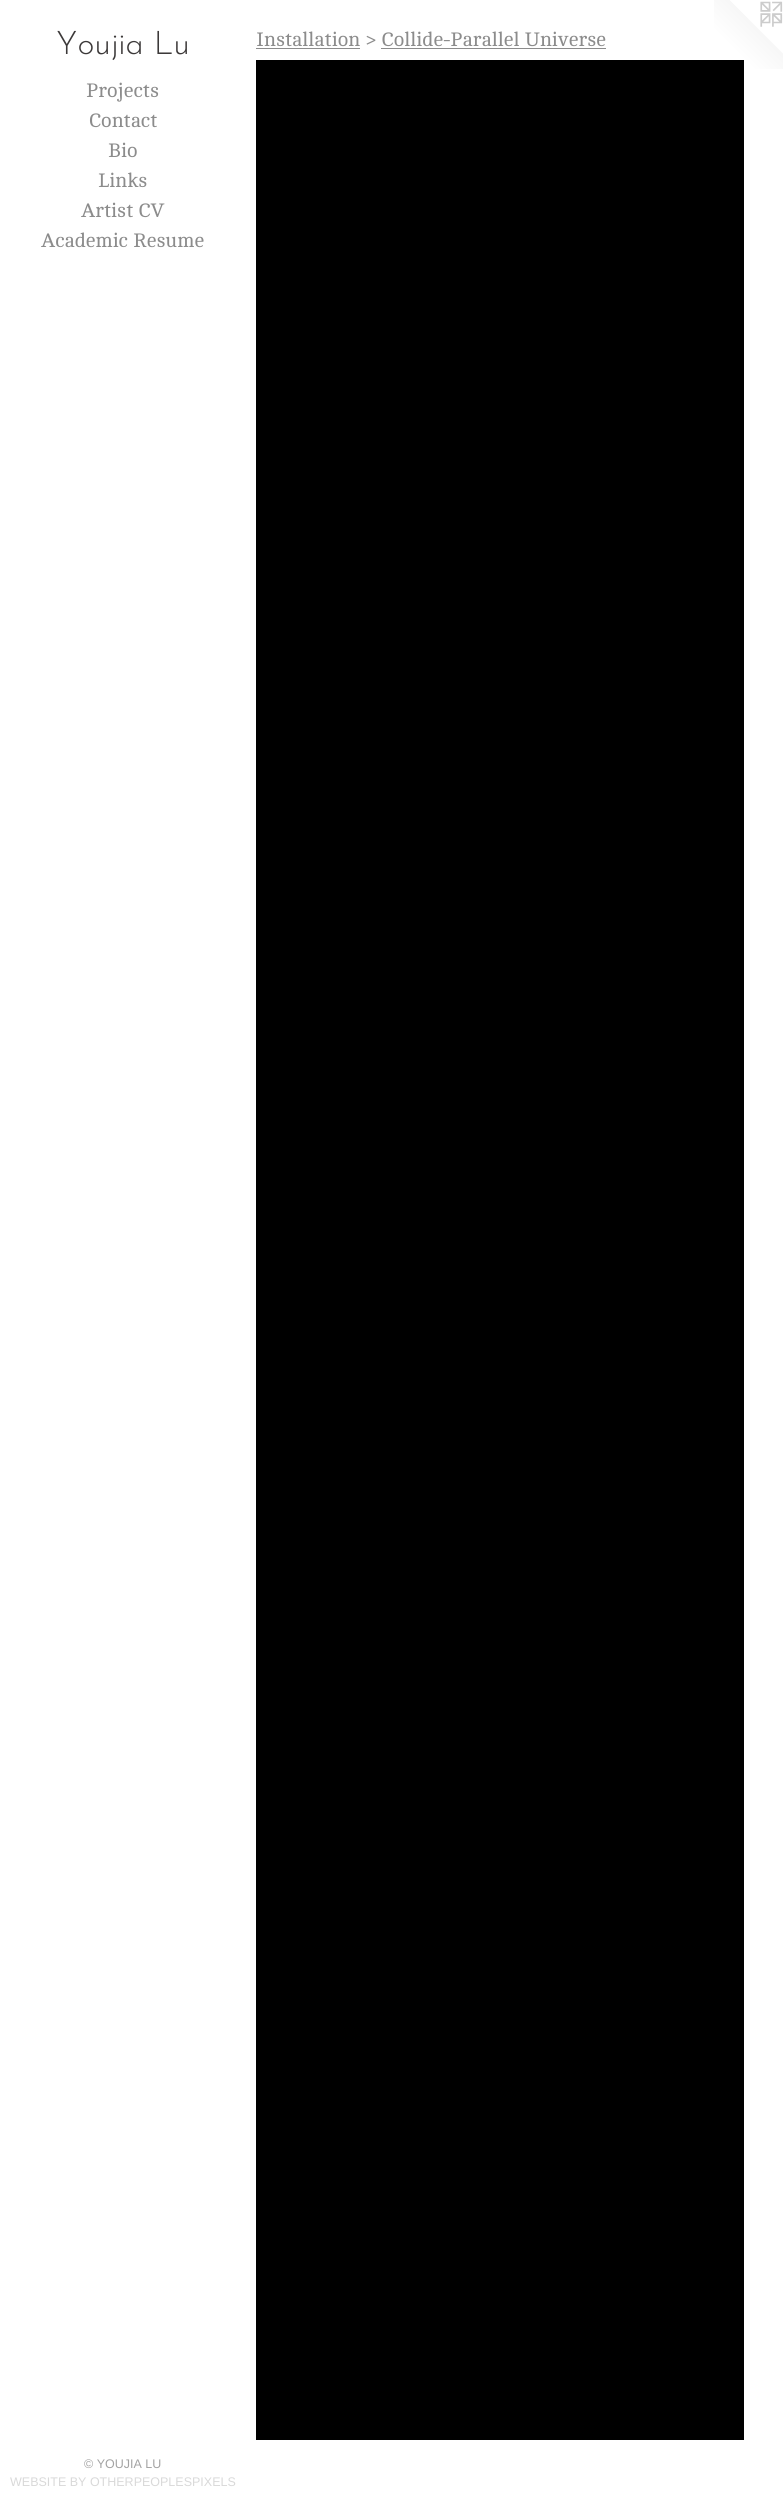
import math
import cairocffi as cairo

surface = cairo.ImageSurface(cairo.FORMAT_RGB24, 783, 2519)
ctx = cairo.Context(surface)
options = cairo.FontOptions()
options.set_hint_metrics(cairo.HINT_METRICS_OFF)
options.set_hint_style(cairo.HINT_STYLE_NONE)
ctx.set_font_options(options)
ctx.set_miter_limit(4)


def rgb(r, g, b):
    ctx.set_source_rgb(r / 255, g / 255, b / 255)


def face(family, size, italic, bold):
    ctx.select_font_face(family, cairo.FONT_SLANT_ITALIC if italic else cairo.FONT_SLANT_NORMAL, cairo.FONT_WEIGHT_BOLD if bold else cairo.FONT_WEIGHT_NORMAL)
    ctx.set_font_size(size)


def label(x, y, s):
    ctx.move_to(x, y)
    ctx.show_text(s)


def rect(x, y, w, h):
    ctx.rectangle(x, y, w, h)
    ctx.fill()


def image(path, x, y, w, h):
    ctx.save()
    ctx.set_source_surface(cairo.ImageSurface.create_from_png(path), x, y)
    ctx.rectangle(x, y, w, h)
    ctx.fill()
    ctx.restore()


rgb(255, 255, 255)
ctx.paint()
face('Josefin Sans Thin', 32.5, 0, 0)
rgb(60, 57, 57)
label(56, 54, 'Youjia Lu')
face('Cambo', 20, 0, 0)
rgb(140, 140, 140)
label(86, 97, 'Projects')
label(89, 127, 'Contact')
label(108, 157, 'Bio')
label(98, 187, 'Links')
label(81, 217, 'Artist CV')
label(41, 247, 'Academic Resume')
face('Liberation Sans', 12.5, 0, 0)
rgb(163, 163, 163)
label(84, 2468, '© YOUJIA LU')
rgb(217, 217, 217)
label(10, 2486, 'WEBSITE BY OTHERPEOPLESPIXELS')
face('Cambo', 20, 0, 0)
rgb(140, 140, 140)
label(256, 46, 'Installation > Collide-Parallel Universe')
rect(256, 48, 104, 1)
rect(381, 48, 225, 1)
image('image0.png', 714, 0, 69, 69)
rgb(0, 0, 0)
rect(256, 60, 488, 2380)
surface.write_to_png('render.png')
